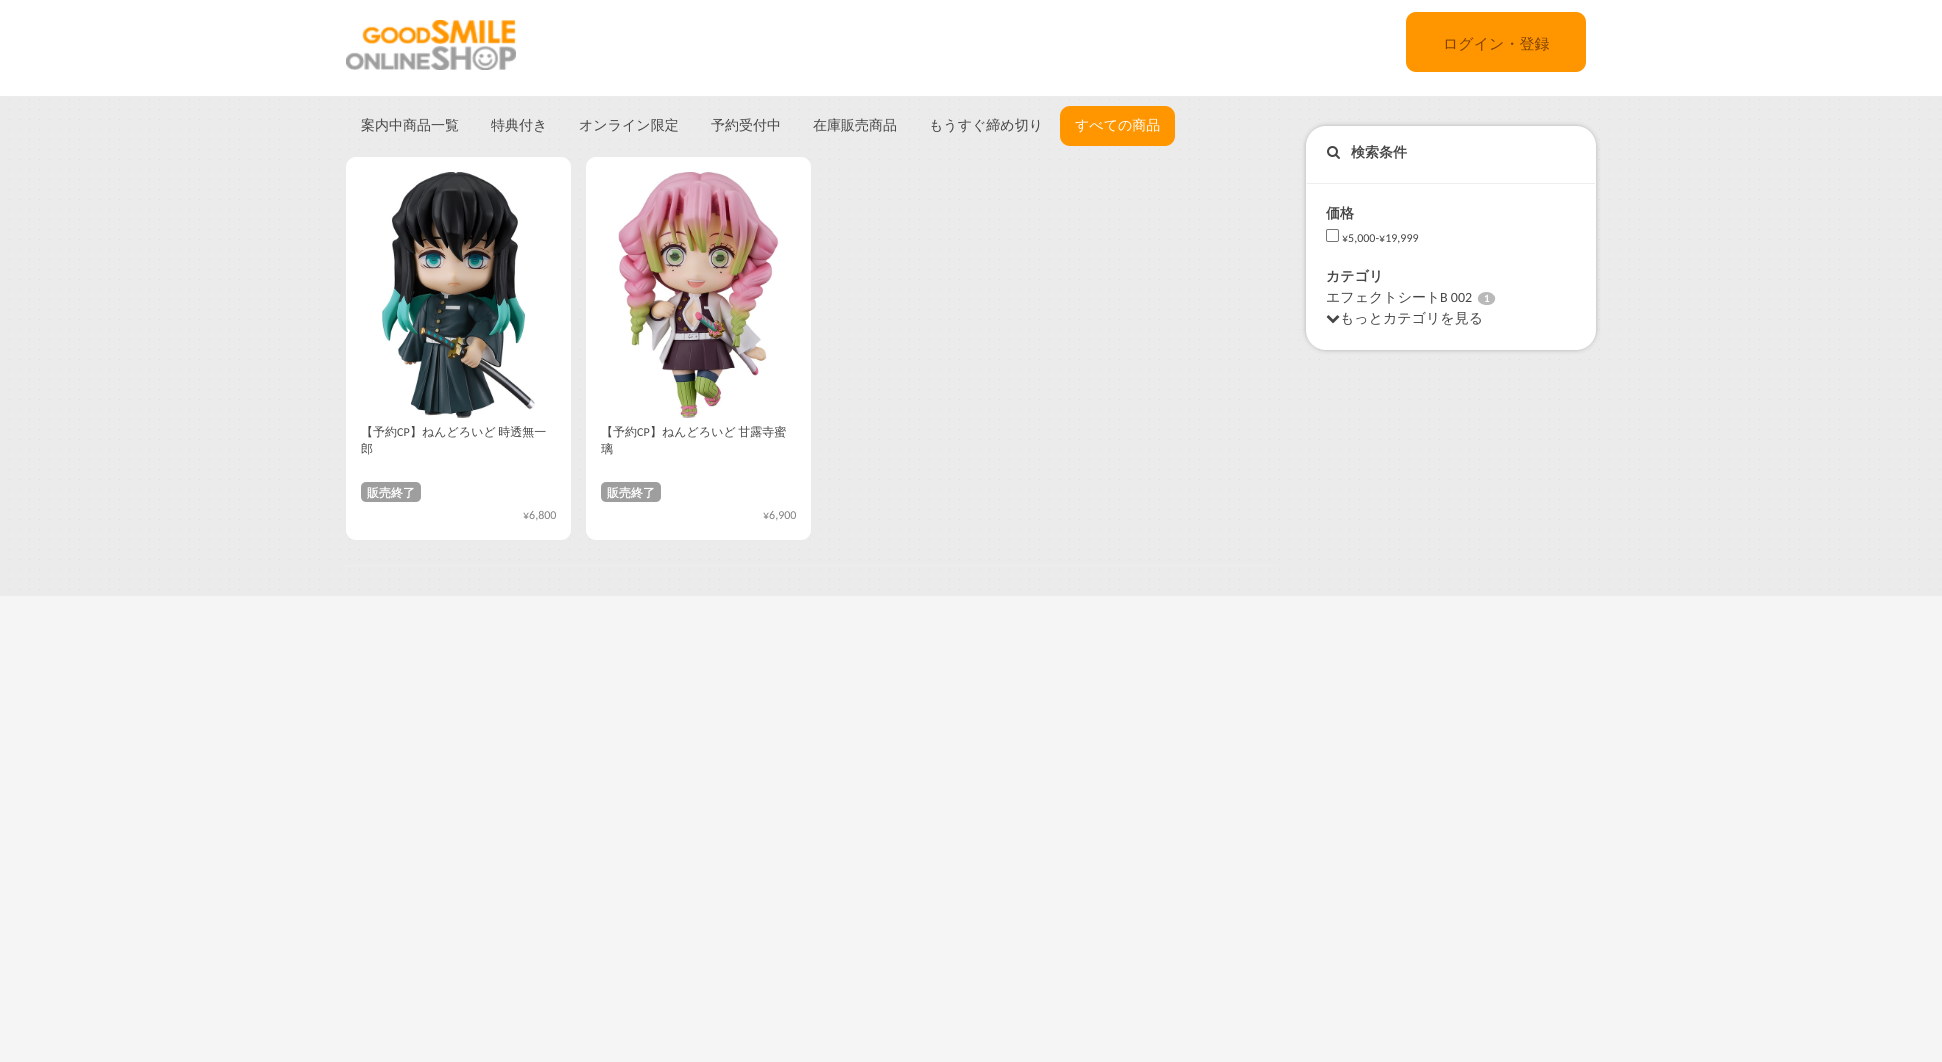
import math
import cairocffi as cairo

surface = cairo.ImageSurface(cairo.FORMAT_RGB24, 1942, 1062)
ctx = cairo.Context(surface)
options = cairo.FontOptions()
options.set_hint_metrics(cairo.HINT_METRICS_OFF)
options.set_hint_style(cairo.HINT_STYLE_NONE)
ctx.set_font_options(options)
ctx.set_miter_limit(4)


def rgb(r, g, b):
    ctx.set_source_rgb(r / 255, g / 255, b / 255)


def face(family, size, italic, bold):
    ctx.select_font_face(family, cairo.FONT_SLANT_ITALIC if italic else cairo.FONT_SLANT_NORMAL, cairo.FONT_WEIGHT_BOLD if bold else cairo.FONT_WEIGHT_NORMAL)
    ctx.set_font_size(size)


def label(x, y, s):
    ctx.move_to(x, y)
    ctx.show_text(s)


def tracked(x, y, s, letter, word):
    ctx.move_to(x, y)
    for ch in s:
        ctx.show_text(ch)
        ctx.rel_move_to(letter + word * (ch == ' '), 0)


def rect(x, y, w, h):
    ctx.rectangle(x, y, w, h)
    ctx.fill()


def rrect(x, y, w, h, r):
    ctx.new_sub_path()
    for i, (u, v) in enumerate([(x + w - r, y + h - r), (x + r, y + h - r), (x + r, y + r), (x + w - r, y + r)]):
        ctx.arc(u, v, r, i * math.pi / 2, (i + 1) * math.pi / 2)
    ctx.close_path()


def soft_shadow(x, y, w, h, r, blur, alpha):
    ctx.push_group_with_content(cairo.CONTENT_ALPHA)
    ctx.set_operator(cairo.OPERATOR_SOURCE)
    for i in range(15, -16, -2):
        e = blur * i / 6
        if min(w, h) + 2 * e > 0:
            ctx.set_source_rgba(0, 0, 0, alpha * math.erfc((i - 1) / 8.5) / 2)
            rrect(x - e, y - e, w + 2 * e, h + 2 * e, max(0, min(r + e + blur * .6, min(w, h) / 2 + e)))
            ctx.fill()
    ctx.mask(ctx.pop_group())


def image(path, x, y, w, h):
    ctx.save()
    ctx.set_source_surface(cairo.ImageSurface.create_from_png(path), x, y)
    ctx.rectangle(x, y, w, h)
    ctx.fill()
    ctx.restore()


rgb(245, 245, 245)
ctx.paint()
image('image0.png', 0, 96, 1942, 500)
rgb(255, 255, 255)
rect(0, 0, 1942, 96)
image('image1.png', 346, 20, 170, 50)
rgb(255, 150, 0)
rrect(1406, 12, 180, 60, 10)
ctx.fill()
face('WenQuanYi Zen Hei Medium', 15, 0, 0)
rgb(128, 64, 0)
label(1443, 49, 'ログイン・登録')
face('WenQuanYi Zen Hei Medium', 14, 0, 0)
rgb(69, 69, 69)
label(361, 130, '案内中商品一覧')
label(491, 130, '特典付き')
label(579, 130, 'オンライン限定')
label(711, 130, '予約受付中')
label(813, 130, '在庫販売商品')
label(929, 130, 'もうすぐ締め切り')
rgb(255, 150, 0)
rrect(1060, 106, 115, 40, 10)
ctx.fill()
rgb(255, 255, 255)
label(1075, 130, 'すべての商品')
rrect(346, 157, 225, 383, 10)
ctx.fill()
image('image2.png', 382, 172, 153, 246)
face('WenQuanYi Zen Hei Medium', 12, 0, 0)
rgb(69, 69, 69)
label(361, 436, '【予約')
face('Carlito', 12, 0, 0)
label(397, 436, 'CP')
face('WenQuanYi Zen Hei Medium', 12, 0, 0)
tracked(410, 436, '】ねんどろいど 時透無一', 0, -1)
label(361, 453, '郎')
rgb(158, 158, 159)
rrect(361, 482, 60, 20, 5)
ctx.fill()
face('WenQuanYi Zen Hei', 12, 0, 1)
rgb(255, 255, 255)
label(367, 497, '販売終了')
face('Carlito', 12, 0, 0)
rgb(127, 127, 127)
label(523, 519, '¥6,800')
rgb(255, 255, 255)
rrect(586, 157, 225, 383, 10)
ctx.fill()
image('image3.png', 618, 172, 161, 246)
face('WenQuanYi Zen Hei Medium', 12, 0, 0)
rgb(69, 69, 69)
label(601, 436, '【予約')
face('Carlito', 12, 0, 0)
label(637, 436, 'CP')
face('WenQuanYi Zen Hei Medium', 12, 0, 0)
tracked(650, 436, '】ねんどろいど 甘露寺蜜', 0, -1)
label(601, 453, '璃')
rgb(158, 158, 159)
rrect(601, 482, 60, 20, 5)
ctx.fill()
face('WenQuanYi Zen Hei', 12, 0, 1)
rgb(255, 255, 255)
label(607, 497, '販売終了')
face('Carlito', 12, 0, 0)
rgb(127, 127, 127)
label(763, 519, '¥6,900')
rgb(238, 238, 238)
rect(346, 565, 930, 1)
rgb(0, 0, 0)
soft_shadow(1306, 126, 290, 224, 20, 2.5, 0.25)
rgb(255, 255, 255)
rrect(1306, 126, 290, 224, 20)
ctx.fill()
image('image4.png', 1327, 146, 13, 13)
face('WenQuanYi Zen Hei', 14, 0, 1)
rgb(69, 69, 69)
label(1351, 157, '検索条件')
rgb(238, 238, 238)
rect(1307, 183, 288, 1)
rgb(69, 69, 69)
label(1326, 218, '価格')
rrect(1326.5, 229.5, 12, 12, 1.5)
rgb(118, 118, 118)
ctx.set_line_width(1)
ctx.stroke()
face('Carlito', 12, 0, 0)
rgb(69, 69, 69)
label(1342, 242, '¥5,000-¥19,999')
face('WenQuanYi Zen Hei', 14, 0, 1)
label(1326, 281, 'カテゴリ')
face('WenQuanYi Zen Hei Medium', 14, 0, 0)
label(1326, 302, 'エフェクトシート')
face('Carlito', 14, 0, 0)
label(1440, 302, 'B 002')
rgb(185, 185, 185)
ctx.new_path()
ctx.move_to(1486, 292)
ctx.curve_to(1489, 292, 1491.5, 292.5, 1493.5, 295)
ctx.curve_to(1495, 296, 1495.5, 298, 1495, 300)
ctx.curve_to(1492.5, 309, 1474, 305, 1478.5, 296)
ctx.curve_to(1480, 293.5, 1483, 292, 1486, 292)
ctx.close_path()
ctx.fill()
face('Carlito', 11, 0, 1)
rgb(255, 255, 255)
label(1484, 302, '1')
image('image5.png', 1326, 315, 14, 9)
face('WenQuanYi Zen Hei Medium', 14, 0, 0)
rgb(69, 69, 69)
label(1340, 323, 'もっとカテゴリを見る')
surface.write_to_png('render.png')
